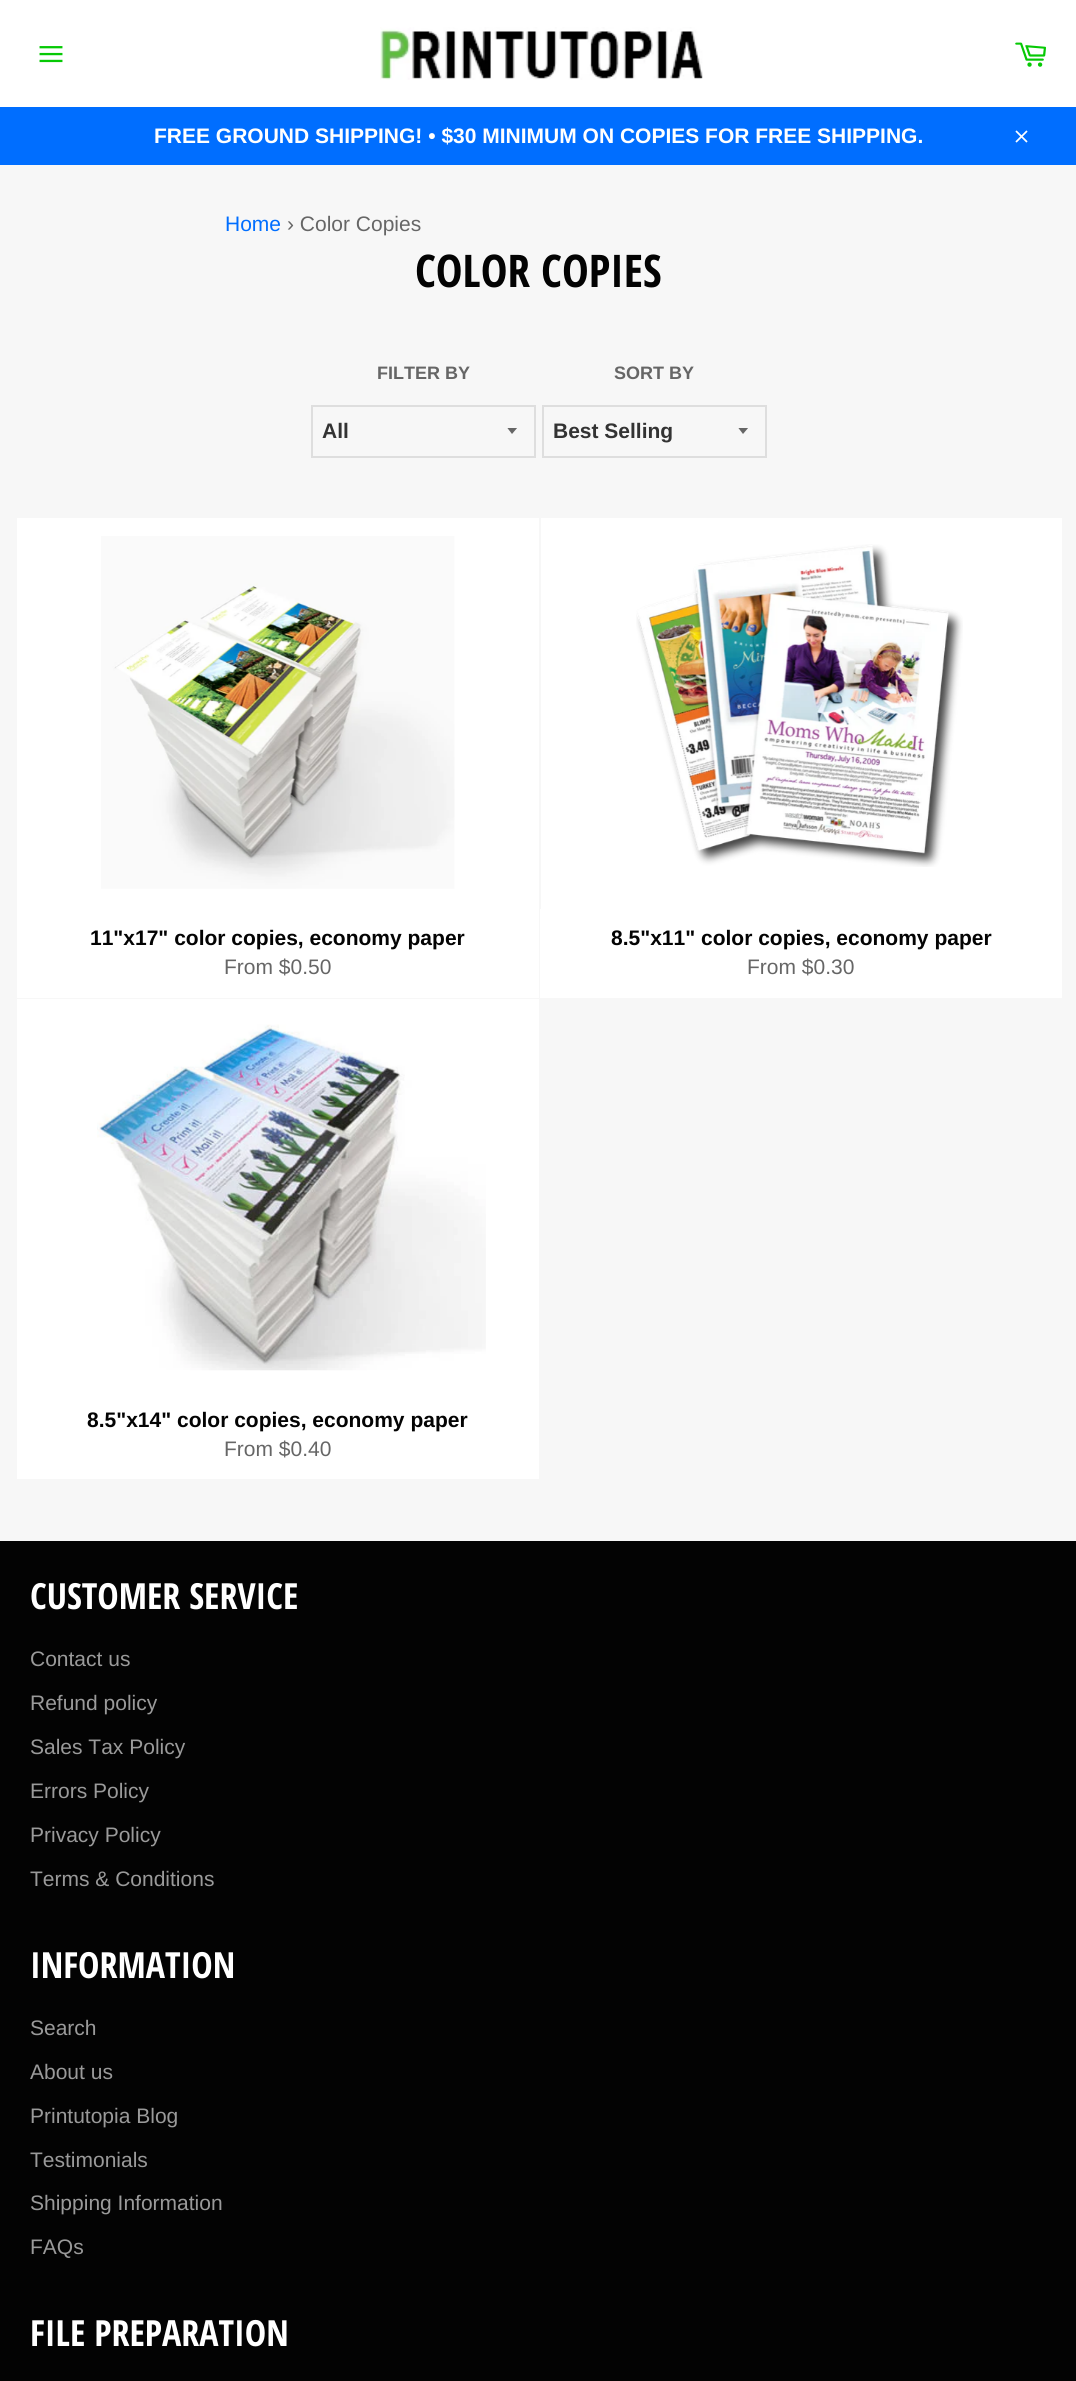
import math
import cairocffi as cairo

surface = cairo.ImageSurface(cairo.FORMAT_RGB24, 1076, 2381)
ctx = cairo.Context(surface)
options = cairo.FontOptions()
options.set_hint_metrics(cairo.HINT_METRICS_OFF)
options.set_hint_style(cairo.HINT_STYLE_NONE)
ctx.set_font_options(options)
ctx.set_miter_limit(4)


def rgb(r, g, b):
    ctx.set_source_rgb(r / 255, g / 255, b / 255)


def face(family, size, italic, bold):
    ctx.select_font_face(family, cairo.FONT_SLANT_ITALIC if italic else cairo.FONT_SLANT_NORMAL, cairo.FONT_WEIGHT_BOLD if bold else cairo.FONT_WEIGHT_NORMAL)
    ctx.set_font_size(size)


def label(x, y, s):
    ctx.move_to(x, y)
    ctx.show_text(s)


def rect(x, y, w, h):
    ctx.rectangle(x, y, w, h)
    ctx.fill()


def image(path, x, y, w, h):
    ctx.save()
    ctx.set_source_surface(cairo.ImageSurface.create_from_png(path), x, y)
    ctx.rectangle(x, y, w, h)
    ctx.fill()
    ctx.restore()


rgb(247, 247, 247)
ctx.paint()
rgb(255, 255, 255)
rect(0, 0, 1076, 107)
image('image0.png', 39, 46, 24, 17)
image('image1.png', 380, 27, 323, 53)
image('image2.png', 1015, 42, 31, 25)
rgb(0, 110, 255)
rect(0, 107, 1076, 58)
face('Liberation Sans', 21, 0, 1)
rgb(255, 255, 255)
label(154, 143, 'FREE GROUND SHIPPING! • $30 MINIMUM ON COPIES FOR FREE SHIPPING.')
image('image3.png', 1015, 130, 13, 13)
face('Liberation Sans', 21, 0, 0)
rgb(0, 110, 255)
label(225, 231, 'Home')
rgb(102, 102, 102)
label(287, 231, '› Color Copies')
face('Open Sans Condensed', 45, 0, 1)
rgb(3, 3, 3)
label(415, 287, 'COLOR COPIES')
face('Liberation Sans', 18, 0, 1)
rgb(102, 102, 102)
label(377, 379, 'FILTER BY')
ctx.save()
ctx.rectangle(507, 428, 12, 7)
ctx.clip()
ctx.new_path()
ctx.move_to(507, 427.5)
ctx.line_to(512, 434)
ctx.line_to(517.5, 427.5)
ctx.close_path()
ctx.fill()
ctx.restore()
ctx.rectangle(312, 406, 223, 51)
rgb(222, 222, 222)
ctx.stroke()
face('Liberation Sans', 21, 0, 1)
rgb(51, 51, 51)
label(322, 438, 'All')
face('Liberation Sans', 18, 0, 1)
rgb(102, 102, 102)
label(614, 379, 'SORT BY')
ctx.save()
ctx.rectangle(738, 428, 12, 7)
ctx.clip()
ctx.new_path()
ctx.move_to(738, 427.5)
ctx.line_to(743, 434)
ctx.line_to(748.5, 427.5)
ctx.close_path()
ctx.fill()
ctx.restore()
ctx.rectangle(543, 406, 223, 51)
rgb(222, 222, 222)
ctx.stroke()
face('Liberation Sans', 21, 0, 1)
rgb(51, 51, 51)
label(553, 438, 'Best Selling')
rgb(255, 255, 255)
rect(17, 518, 522, 480)
image('image4.png', 101, 536, 354, 353)
rgb(3, 3, 3)
label(90, 945, '11"x17" color copies, economy paper')
face('Liberation Sans', 21, 0, 0)
rgb(102, 102, 102)
label(224, 974, 'From $0.50')
rgb(255, 255, 255)
rect(541, 518, 521, 391)
image('image5.png', 636, 544, 327, 323)
rect(540, 909, 522, 89)
face('Liberation Sans', 21, 0, 1)
rgb(3, 3, 3)
label(611, 945, '8.5"x11" color copies, economy paper')
face('Liberation Sans', 21, 0, 0)
rgb(102, 102, 102)
label(747, 974, 'From $0.30')
rgb(255, 255, 255)
rect(17, 999, 522, 480)
image('image6.png', 97, 1024, 389, 347)
face('Liberation Sans', 21, 0, 1)
rgb(3, 3, 3)
label(87, 1427, '8.5"x14" color copies, economy paper')
face('Liberation Sans', 21, 0, 0)
rgb(102, 102, 102)
label(224, 1456, 'From $0.40')
rgb(3, 3, 3)
rect(0, 1541, 1076, 840)
face('Open Sans Condensed', 36, 0, 1)
rgb(255, 255, 255)
label(30, 1609, 'CUSTOMER SERVICE')
face('Liberation Sans', 21, 0, 0)
rgb(154, 154, 154)
label(30, 1666, 'Contact us')
label(30, 1710, 'Refund policy')
label(30, 1754, 'Sales Tax Policy')
label(30, 1798, 'Errors Policy')
label(30, 1842, 'Privacy Policy')
label(30, 1886, 'Terms & Conditions')
face('Open Sans Condensed', 36, 0, 1)
rgb(255, 255, 255)
label(30, 1978, 'INFORMATION')
face('Liberation Sans', 21, 0, 0)
rgb(154, 154, 154)
label(30, 2035, 'Search')
label(30, 2079, 'About us')
label(30, 2123, 'Printutopia Blog')
label(30, 2167, 'Testimonials')
label(30, 2210, 'Shipping Information')
label(30, 2254, 'FAQs')
face('Open Sans Condensed', 36, 0, 1)
rgb(255, 255, 255)
label(30, 2346, 'FILE PREPARATION')
surface.write_to_png('render.png')
